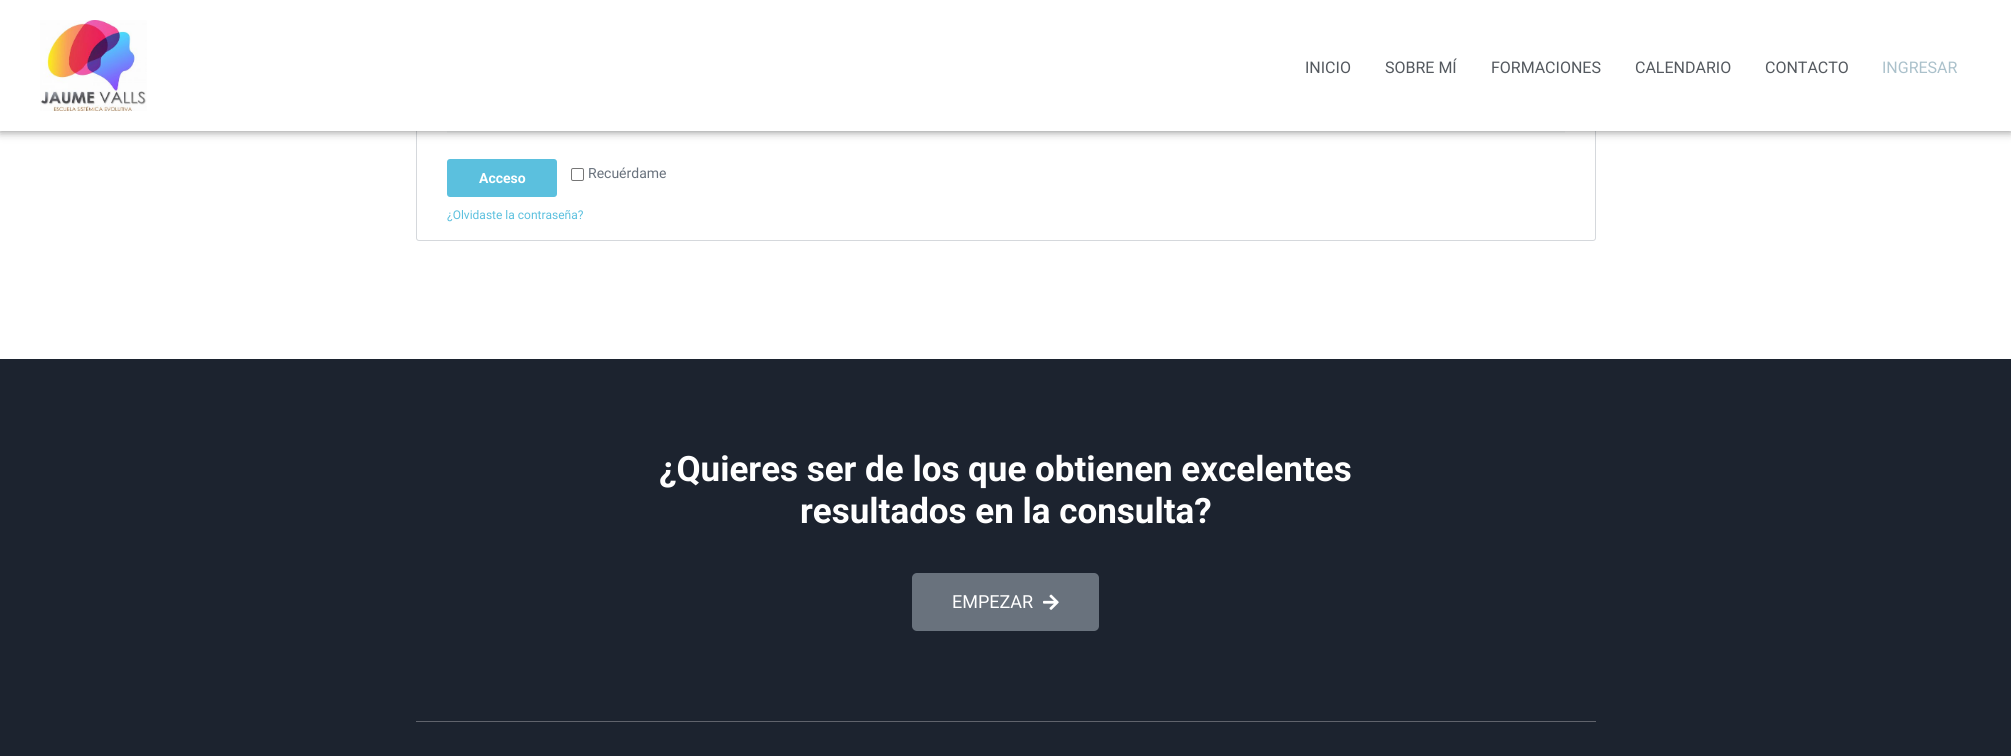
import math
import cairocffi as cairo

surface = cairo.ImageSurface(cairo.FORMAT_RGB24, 2011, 756)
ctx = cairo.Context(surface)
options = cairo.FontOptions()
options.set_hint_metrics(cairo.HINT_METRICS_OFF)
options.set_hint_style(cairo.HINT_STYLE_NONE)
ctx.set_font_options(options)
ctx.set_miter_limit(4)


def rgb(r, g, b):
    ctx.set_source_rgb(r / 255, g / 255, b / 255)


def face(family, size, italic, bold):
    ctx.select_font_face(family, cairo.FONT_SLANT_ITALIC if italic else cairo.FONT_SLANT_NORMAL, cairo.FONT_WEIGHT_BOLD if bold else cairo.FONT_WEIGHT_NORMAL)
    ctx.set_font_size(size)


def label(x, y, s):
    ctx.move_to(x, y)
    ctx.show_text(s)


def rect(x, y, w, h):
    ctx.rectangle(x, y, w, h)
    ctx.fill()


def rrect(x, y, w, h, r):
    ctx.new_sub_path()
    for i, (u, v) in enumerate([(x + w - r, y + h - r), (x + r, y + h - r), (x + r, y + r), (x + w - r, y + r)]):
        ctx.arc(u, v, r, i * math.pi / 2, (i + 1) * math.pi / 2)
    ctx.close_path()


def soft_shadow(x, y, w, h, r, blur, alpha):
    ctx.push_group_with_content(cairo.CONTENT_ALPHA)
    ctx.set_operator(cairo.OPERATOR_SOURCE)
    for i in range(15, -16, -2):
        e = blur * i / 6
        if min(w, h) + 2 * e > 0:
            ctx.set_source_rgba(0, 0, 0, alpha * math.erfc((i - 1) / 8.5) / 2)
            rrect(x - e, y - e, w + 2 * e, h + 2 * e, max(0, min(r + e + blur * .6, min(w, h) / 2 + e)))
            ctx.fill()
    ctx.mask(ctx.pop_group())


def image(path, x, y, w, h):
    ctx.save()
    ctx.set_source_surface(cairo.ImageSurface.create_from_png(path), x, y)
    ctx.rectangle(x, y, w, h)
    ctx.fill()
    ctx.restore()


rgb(255, 255, 255)
ctx.paint()
rrect(416.5, -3.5, 1179, 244, 2.5)
rgb(213, 216, 220)
ctx.set_line_width(1)
ctx.stroke()
rgb(249, 250, 250)
rect(447, 131, 1118, 2)
rgb(0, 0, 0)
soft_shadow(0, 0, 2011, 131, 0, 5, 0.5)
rgb(255, 255, 255)
rect(0, 0, 2011, 131)
image('image0.png', 40, 20, 107, 91)
face('Roboto', 16, 0, 0)
rgb(84, 89, 95)
label(1305, 73, 'INICIO')
label(1385, 73, 'SOBRE MÍ')
label(1491, 73, 'FORMACIONES')
label(1635, 73, 'CALENDARIO')
label(1765, 73, 'CONTACTO')
rgb(171, 193, 203)
label(1882, 73, 'INGRESAR')
rgb(91, 192, 222)
rrect(447, 159, 110, 38, 3)
ctx.fill()
face('Roboto', 14, 0, 1)
rgb(255, 255, 255)
label(479, 183, 'Acceso')
rrect(571.5, 168.5, 12, 12, 1.5)
rgb(118, 118, 118)
ctx.stroke()
face('Roboto', 14, 0, 0)
rgb(105, 114, 125)
label(588, 178, 'Recuérdame')
face('Roboto', 12, 0, 0)
rgb(91, 192, 222)
label(447, 219, '¿Olvidaste la contraseña?')
rgb(28, 35, 47)
rect(0, 359, 2011, 397)
face('Roboto', 35, 0, 1)
rgb(255, 255, 255)
label(659, 481, '¿Quieres ser de los que obtienen excelentes')
label(800, 523, 'resultados en la consulta?')
rgb(105, 114, 125)
rrect(912, 573, 187, 58, 5)
ctx.fill()
face('Roboto', 18, 0, 0)
rgb(255, 255, 255)
label(952, 608, 'EMPEZAR')
image('image1.png', 1043, 594, 16, 16)
rgb(96, 99, 108)
rect(416, 721, 1180, 1)
surface.write_to_png('render.png')
